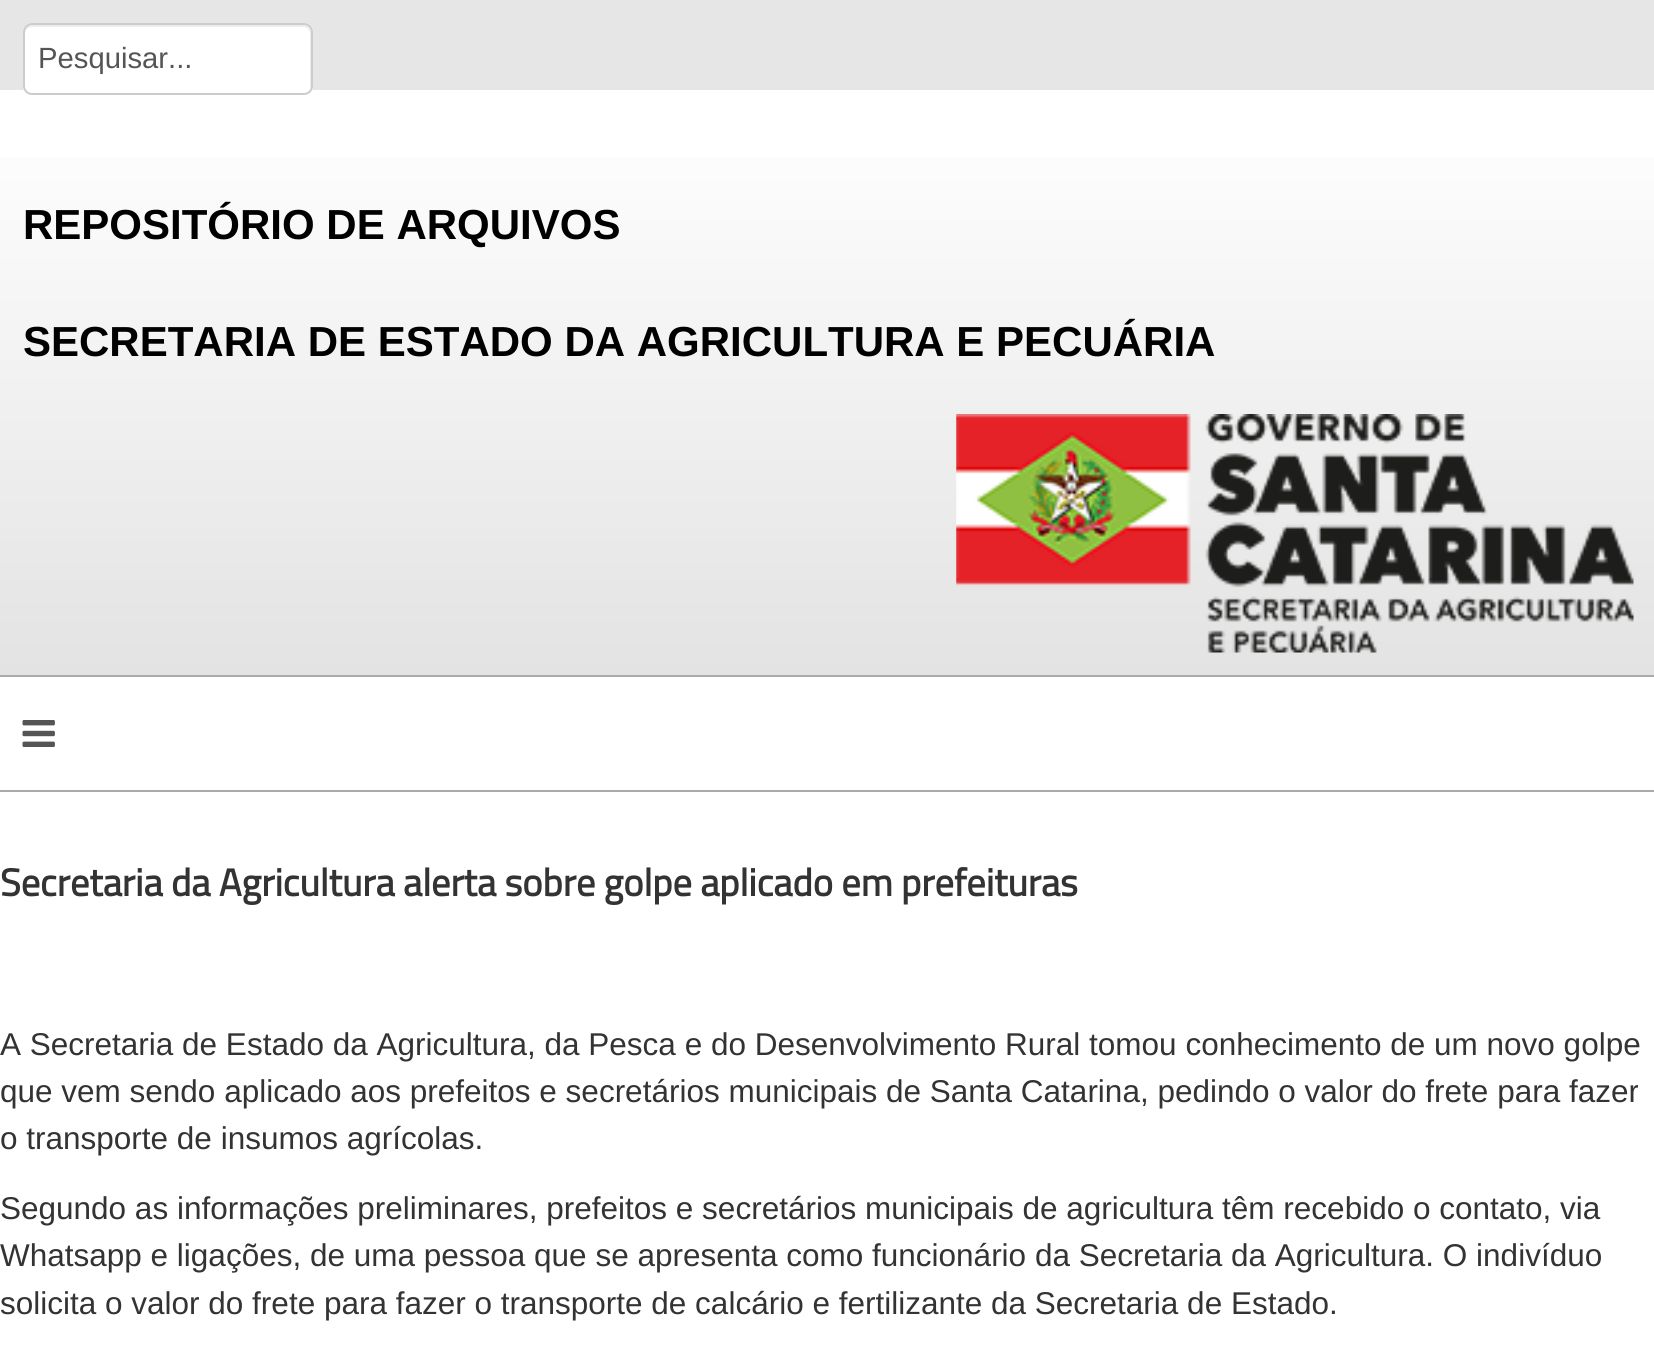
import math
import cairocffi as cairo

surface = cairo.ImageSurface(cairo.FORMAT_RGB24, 1654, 1369)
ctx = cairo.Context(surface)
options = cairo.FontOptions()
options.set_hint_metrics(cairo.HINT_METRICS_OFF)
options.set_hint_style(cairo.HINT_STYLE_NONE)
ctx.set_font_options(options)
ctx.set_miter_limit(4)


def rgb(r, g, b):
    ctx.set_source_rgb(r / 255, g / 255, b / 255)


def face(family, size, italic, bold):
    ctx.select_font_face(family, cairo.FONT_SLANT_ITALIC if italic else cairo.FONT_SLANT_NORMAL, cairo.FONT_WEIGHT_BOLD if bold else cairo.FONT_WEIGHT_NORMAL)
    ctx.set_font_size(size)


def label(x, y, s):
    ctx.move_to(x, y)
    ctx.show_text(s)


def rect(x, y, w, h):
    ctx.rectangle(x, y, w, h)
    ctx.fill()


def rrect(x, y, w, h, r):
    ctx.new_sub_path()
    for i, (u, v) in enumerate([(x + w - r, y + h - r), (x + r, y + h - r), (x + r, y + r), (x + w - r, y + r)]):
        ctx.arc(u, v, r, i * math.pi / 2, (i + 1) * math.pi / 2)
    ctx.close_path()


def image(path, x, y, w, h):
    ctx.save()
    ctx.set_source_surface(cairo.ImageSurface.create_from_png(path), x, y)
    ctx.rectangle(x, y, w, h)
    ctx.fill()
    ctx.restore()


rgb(255, 255, 255)
ctx.paint()
rgb(230, 230, 230)
rect(0, 0, 1654, 90)
rgb(255, 255, 255)
rrect(23, 23, 290, 72, 9)
ctx.fill()
rgb(236, 236, 236)
ctx.new_path()
ctx.move_to(32, 27)
ctx.line_to(304, 27)
ctx.curve_to(307, 27, 310, 30, 310, 34)
ctx.line_to(310, 89)
ctx.curve_to(311, 88, 311, 86, 311, 85)
ctx.line_to(311, 32)
ctx.curve_to(311, 28, 308, 25, 304, 25)
ctx.line_to(32, 25)
ctx.curve_to(28, 25, 25, 28, 25, 32)
ctx.line_to(25, 34)
ctx.curve_to(25, 30, 28, 27, 32, 27)
ctx.close_path()
ctx.fill()
rrect(24, 24, 288, 70, 8)
rgb(204, 204, 204)
ctx.stroke()
face('Liberation Sans', 29.25, 0, 0)
rgb(85, 85, 85)
label(38, 68, 'Pesquisar...')
gradient = cairo.LinearGradient(828, 108, 828, 792)
gradient.add_color_stop_rgba(0, 1, 1, 1, 1)
gradient.add_color_stop_rgba(1, 0.867, 0.867, 0.867, 1)
ctx.set_source(gradient)
rect(0, 158, 1654, 517)
face('Liberation Sans', 42, 0, 1)
rgb(0, 0, 0)
label(23, 239, 'REPOSITÓRIO DE ARQUIVOS')
label(23, 356, 'SECRETARIA DE ESTADO DA AGRICULTURA E PECUÁRIA')
image('image0.png', 956, 414, 678, 239)
rgb(170, 170, 170)
rect(0, 675, 1654, 2)
rect(0, 790, 1654, 2)
image('image1.png', 22, 720, 33, 27)
face('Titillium', 38.25, 0, 1)
rgb(51, 51, 51)
label(0, 896, 'Secretaria da Agricultura alerta sobre golpe aplicado em prefeituras')
face('Liberation Sans', 31.5, 0, 0)
label(0, 1055, 'A Secretaria de Estado da Agricultura, da Pesca e do Desenvolvimento Rural tomou conhecimento de um novo golpe')
label(0, 1102, 'que vem sendo aplicado aos prefeitos e secretários municipais de Santa Catarina, pedindo o valor do frete para fazer')
label(0, 1149, 'o transporte de insumos agrícolas.')
label(0, 1219, 'Segundo as informações preliminares, prefeitos e secretários municipais de agricultura têm recebido o contato, via')
label(0, 1266, 'Whatsapp e ligações, de uma pessoa que se apresenta como funcionário da Secretaria da Agricultura. O indivíduo')
label(0, 1314, 'solicita o valor do frete para fazer o transporte de calcário e fertilizante da Secretaria de Estado.')
surface.write_to_png('render.png')
